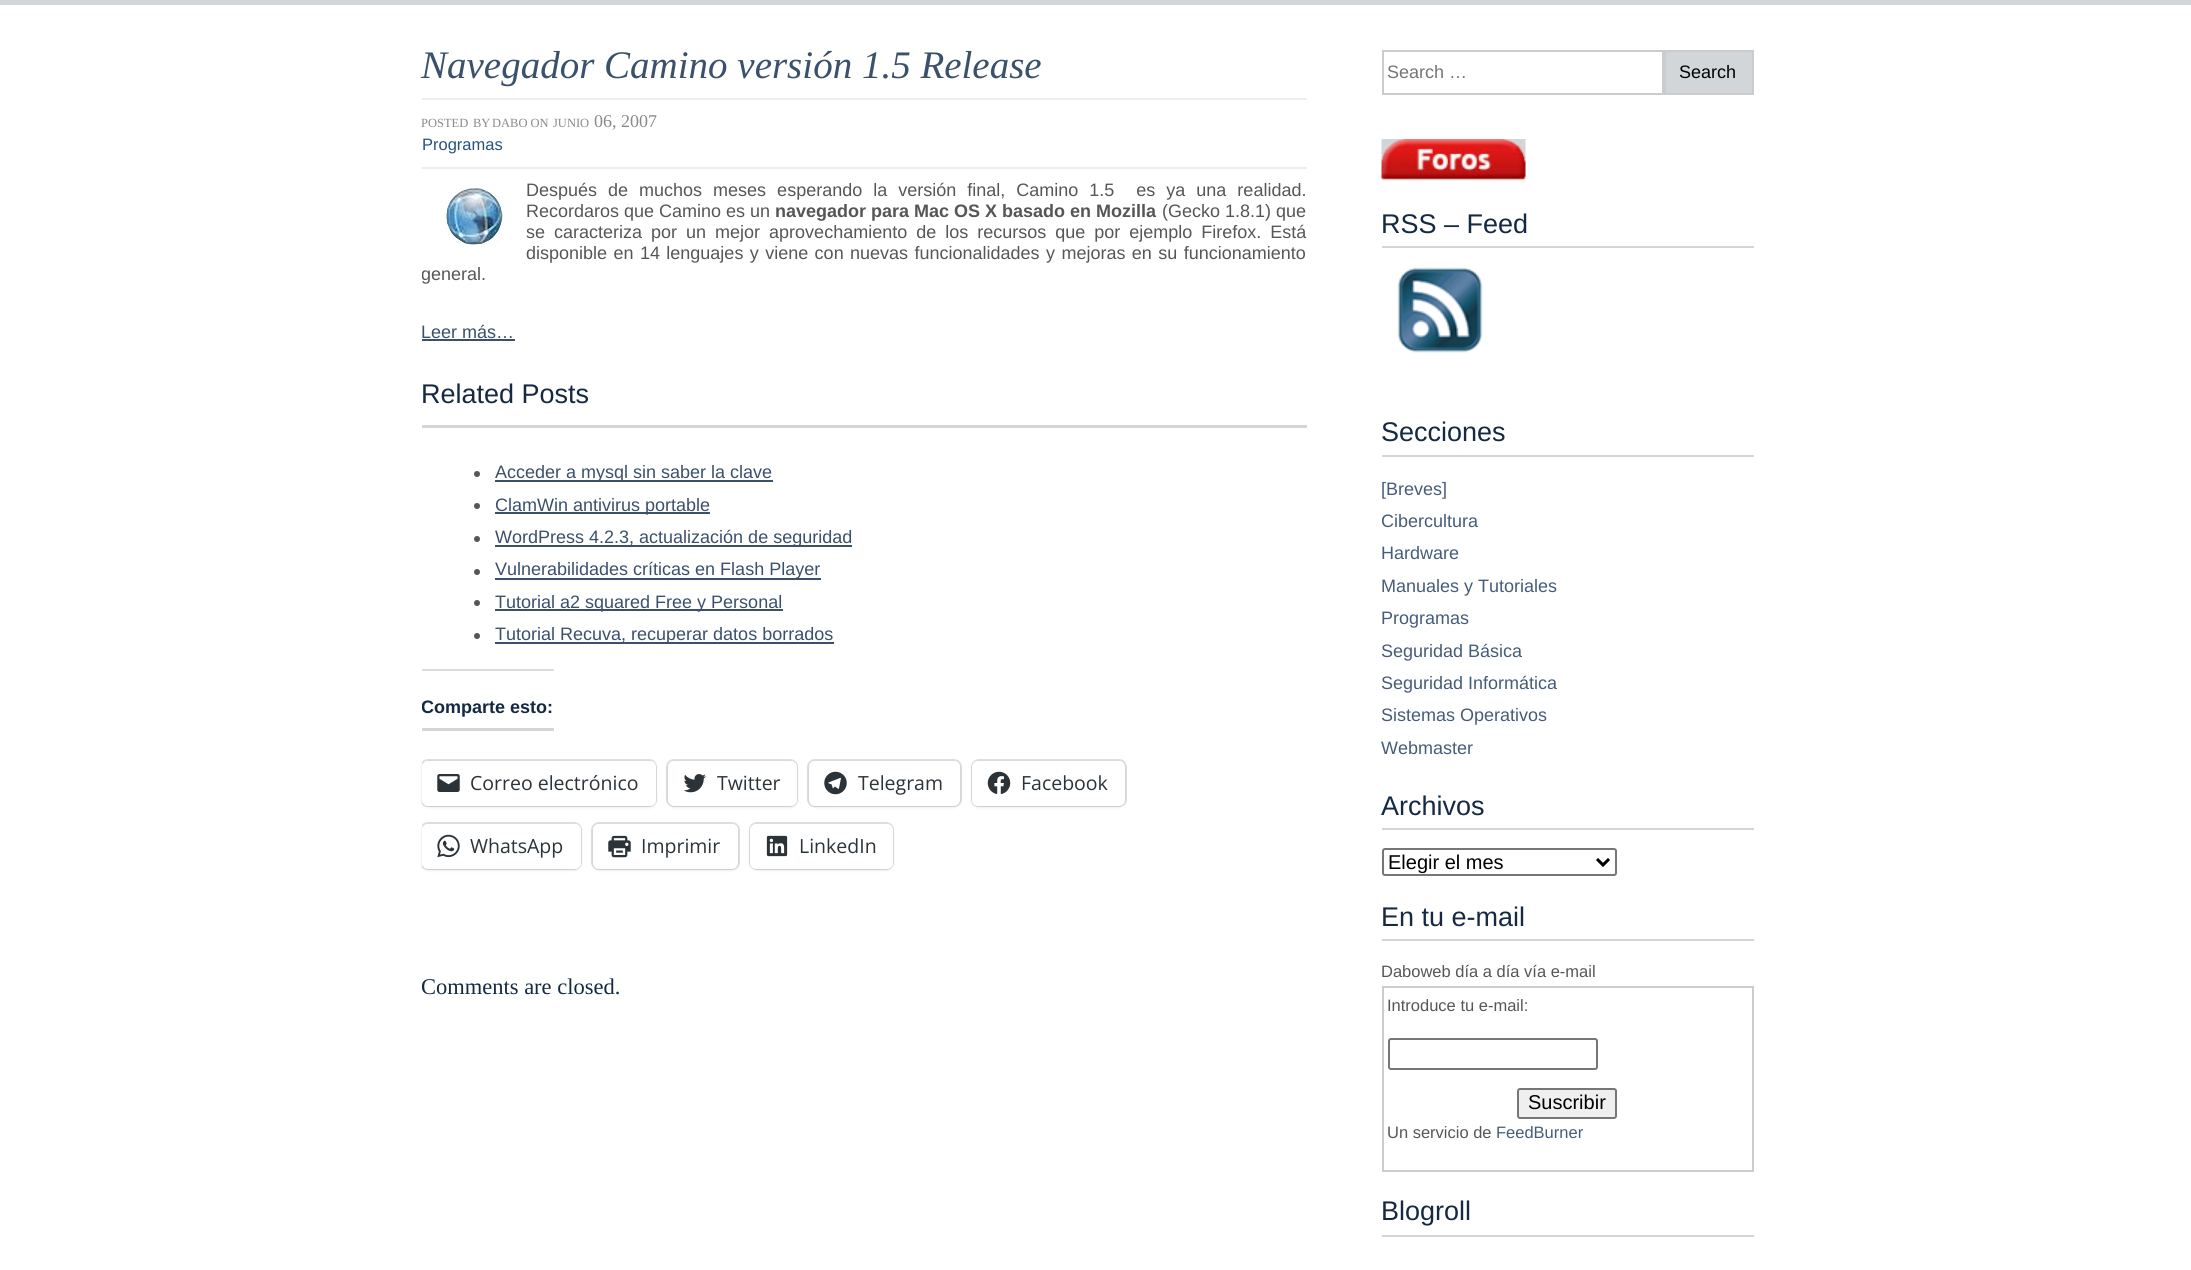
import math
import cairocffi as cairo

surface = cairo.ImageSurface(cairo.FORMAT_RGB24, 2191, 1270)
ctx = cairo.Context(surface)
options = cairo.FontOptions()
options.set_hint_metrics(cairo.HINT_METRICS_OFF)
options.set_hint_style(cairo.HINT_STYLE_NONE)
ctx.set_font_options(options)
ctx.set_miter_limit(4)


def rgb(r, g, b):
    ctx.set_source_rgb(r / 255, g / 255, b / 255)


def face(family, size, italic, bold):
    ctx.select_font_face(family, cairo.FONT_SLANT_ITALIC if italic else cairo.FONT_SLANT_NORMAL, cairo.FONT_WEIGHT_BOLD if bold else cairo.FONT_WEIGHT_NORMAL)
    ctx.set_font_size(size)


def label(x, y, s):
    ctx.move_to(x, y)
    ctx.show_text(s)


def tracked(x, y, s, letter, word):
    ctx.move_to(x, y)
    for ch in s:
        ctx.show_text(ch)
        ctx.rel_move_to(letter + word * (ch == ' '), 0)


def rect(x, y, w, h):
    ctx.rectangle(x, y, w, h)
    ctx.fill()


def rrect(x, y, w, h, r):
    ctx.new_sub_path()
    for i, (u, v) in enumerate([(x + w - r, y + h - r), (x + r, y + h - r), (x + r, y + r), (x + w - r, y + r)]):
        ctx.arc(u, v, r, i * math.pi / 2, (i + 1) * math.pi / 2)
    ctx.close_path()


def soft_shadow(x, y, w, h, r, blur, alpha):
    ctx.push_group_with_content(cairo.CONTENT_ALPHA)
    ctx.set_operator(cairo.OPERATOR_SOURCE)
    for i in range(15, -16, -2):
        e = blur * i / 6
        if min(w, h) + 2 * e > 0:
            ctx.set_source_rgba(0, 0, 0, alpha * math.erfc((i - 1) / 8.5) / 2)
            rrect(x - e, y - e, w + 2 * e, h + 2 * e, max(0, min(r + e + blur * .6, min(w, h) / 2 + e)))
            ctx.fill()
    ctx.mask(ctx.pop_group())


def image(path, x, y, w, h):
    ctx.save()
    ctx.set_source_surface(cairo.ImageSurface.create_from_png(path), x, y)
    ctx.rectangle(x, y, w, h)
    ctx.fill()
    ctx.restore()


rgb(255, 255, 255)
ctx.paint()
rgb(210, 214, 216)
rect(0, 0, 2191, 5)
face('Liberation Serif', 39, 1, 0)
rgb(59, 80, 107)
label(421, 78, 'Navegador Camino versión 1.5 Release')
rgb(238, 238, 238)
rect(422, 98, 885, 2)
rect(422, 167, 885, 2)
face('Liberation Serif', 12.5, 0, 0)
rgb(137, 137, 137)
label(421, 127, 'POSTED')
label(473, 127, 'BY')
label(492, 127, 'DABO ON')
label(553, 127, 'JUNIO')
face('Liberation Serif', 18, 0, 0)
label(594, 127, '06, 2007')
face('Liberation Sans', 16.5, 0, 0)
rgb(38, 82, 124)
label(422, 150, 'Programas')
image('image0.png', 445, 187, 64, 60)
face('Liberation Sans', 18, 0, 0)
rgb(86, 86, 86)
tracked(526, 196, 'Después de muchos meses esperando la versión final, Camino 1.5  es ya una realidad.', 0, 6)
label(526, 217, 'Recordaros que Camino es un')
face('Liberation Sans', 18, 0, 1)
label(775, 217, 'navegador para Mac OS X basado en Mozilla')
face('Liberation Sans', 18, 0, 0)
label(1162, 217, '(Gecko 1.8.1) que')
tracked(526, 238, 'se caracteriza por un mejor aprovechamiento de los recursos que por ejemplo Firefox. Está', 0, 4)
tracked(526, 259, 'disponible en 14 lenguajes y viene con nuevas funcionalidades y mejoras en su funcionamiento', 0, 1.4)
ctx.save()
ctx.rectangle(422, 180, 885, 725)
ctx.clip()
label(421, 280, 'general.')
ctx.restore()
rgb(59, 80, 107)
label(421, 338, 'Leer más…')
rect(422, 339, 93, 2)
rgb(210, 214, 216)
rect(422, 425, 885, 3)
face('Liberation Sans', 27, 0, 0)
rgb(21, 41, 66)
label(421, 403, 'Related Posts')
rgb(86, 86, 86)
ctx.new_path()
ctx.arc(477, 474, 3, 0, 2 * math.pi)
ctx.fill()
rgb(59, 80, 107)
rect(495, 480, 278, 2)
face('Liberation Sans', 18, 0, 0)
label(495, 478, 'Acceder a mysql sin saber la clave')
rgb(86, 86, 86)
ctx.new_path()
ctx.arc(477, 506, 3, 0, 2 * math.pi)
ctx.fill()
rgb(59, 80, 107)
rect(495, 512, 215, 2)
label(495, 511, 'ClamWin antivirus portable')
rgb(86, 86, 86)
ctx.new_path()
ctx.arc(477, 539, 3, 0, 2 * math.pi)
ctx.fill()
rgb(59, 80, 107)
rect(495, 545, 357, 2)
label(495, 543, 'WordPress 4.2.3, actualización de seguridad')
rgb(86, 86, 86)
ctx.new_path()
ctx.arc(477, 572, 3, 0, 2 * math.pi)
ctx.fill()
rgb(59, 80, 107)
rect(495, 578, 326, 2)
label(495, 575, 'Vulnerabilidades críticas en Flash Player')
rgb(86, 86, 86)
ctx.new_path()
ctx.arc(477, 603, 3, 0, 2 * math.pi)
ctx.fill()
rgb(59, 80, 107)
rect(495, 609, 288, 2)
label(495, 608, 'Tutorial a2 squared Free y Personal')
rgb(86, 86, 86)
ctx.new_path()
ctx.arc(477, 636, 3, 0, 2 * math.pi)
ctx.fill()
rgb(59, 80, 107)
rect(495, 642, 339, 2)
label(495, 640, 'Tutorial Recuva, recuperar datos borrados')
rgb(210, 214, 216)
rect(422, 728, 132, 3)
rgb(220, 220, 222)
rect(422, 669, 132, 2)
ctx.save()
ctx.rectangle(422, 180, 885, 725)
ctx.clip()
face('Liberation Sans', 18, 0, 1)
rgb(21, 41, 66)
label(421, 713, 'Comparte esto:')
rrect(421, 760, 235, 46, 7)
rgb(224, 224, 224)
ctx.stroke()
ctx.restore()
ctx.save()
ctx.set_fill_rule(cairo.FILL_RULE_EVEN_ODD)
ctx.new_path()
ctx.move_to(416, 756)
ctx.line_to(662, 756)
ctx.line_to(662, 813)
ctx.line_to(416, 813)
ctx.close_path()
ctx.move_to(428, 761)
ctx.line_to(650, 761)
ctx.curve_to(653.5, 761, 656, 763.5, 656, 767)
ctx.line_to(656, 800)
ctx.curve_to(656, 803.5, 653.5, 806, 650, 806)
ctx.line_to(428, 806)
ctx.curve_to(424.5, 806, 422, 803.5, 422, 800)
ctx.line_to(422, 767)
ctx.curve_to(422, 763.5, 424.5, 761, 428, 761)
ctx.close_path()
ctx.clip()
rgb(0, 0, 0)
soft_shadow(422, 762, 234, 45, 6, 1.5, 0.12)
ctx.restore()
rgb(255, 255, 255)
rrect(422, 761, 234, 45, 6)
ctx.fill()
image('image1.png', 437, 774, 23, 18)
face('Open Sans', 19.5, 0, 0)
rgb(44, 51, 56)
label(470, 790, 'Correo electrónico')
rrect(667, 760, 130, 46, 7)
rgb(224, 224, 224)
ctx.stroke()
rgb(0, 0, 0)
soft_shadow(668, 762, 129, 45, 6, 1.5, 0.12)
rgb(255, 255, 255)
rrect(668, 761, 129, 45, 6)
ctx.fill()
image('image2.png', 683, 774, 23, 19)
rgb(44, 51, 56)
label(717, 790, 'Twitter')
rrect(808, 760, 153, 46, 7)
rgb(224, 224, 224)
ctx.stroke()
rgb(0, 0, 0)
soft_shadow(809, 762, 151, 45, 6, 1.5, 0.12)
rgb(255, 255, 255)
rrect(809, 761, 151, 45, 6)
ctx.fill()
image('image3.png', 824, 771, 23, 24)
rgb(44, 51, 56)
label(858, 790, 'Telegram')
rrect(972, 760, 154, 46, 7)
rgb(224, 224, 224)
ctx.stroke()
rgb(0, 0, 0)
soft_shadow(972, 762, 153, 45, 6, 1.5, 0.12)
rgb(255, 255, 255)
rrect(972, 761, 153, 45, 6)
ctx.fill()
image('image4.png', 987, 771, 24, 23)
rgb(44, 51, 56)
label(1021, 790, 'Facebook')
ctx.save()
ctx.rectangle(422, 180, 885, 725)
ctx.clip()
rrect(421, 823, 160, 46, 7)
rgb(224, 224, 224)
ctx.stroke()
ctx.restore()
ctx.save()
ctx.set_fill_rule(cairo.FILL_RULE_EVEN_ODD)
ctx.new_path()
ctx.move_to(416, 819)
ctx.line_to(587, 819)
ctx.line_to(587, 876)
ctx.line_to(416, 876)
ctx.close_path()
ctx.move_to(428, 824)
ctx.line_to(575, 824)
ctx.curve_to(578.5, 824, 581, 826.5, 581, 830)
ctx.line_to(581, 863)
ctx.curve_to(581, 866.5, 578.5, 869, 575, 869)
ctx.line_to(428, 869)
ctx.curve_to(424.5, 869, 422, 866.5, 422, 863)
ctx.line_to(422, 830)
ctx.curve_to(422, 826.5, 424.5, 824, 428, 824)
ctx.close_path()
ctx.clip()
rgb(0, 0, 0)
soft_shadow(422, 825, 159, 45, 6, 1.5, 0.12)
ctx.restore()
rgb(255, 255, 255)
rrect(422, 824, 159, 45, 6)
ctx.fill()
image('image5.png', 437, 834, 23, 24)
rgb(44, 51, 56)
label(470, 853, 'WhatsApp')
rrect(592, 823, 147, 46, 7)
rgb(224, 224, 224)
ctx.stroke()
rgb(0, 0, 0)
soft_shadow(593, 825, 145, 45, 6, 1.5, 0.12)
rgb(255, 255, 255)
rrect(593, 824, 145, 45, 6)
ctx.fill()
image('image6.png', 608, 835, 23, 23)
rgb(44, 51, 56)
label(641, 853, 'Imprimir')
rrect(750, 823, 143, 46, 7)
rgb(224, 224, 224)
ctx.stroke()
rgb(0, 0, 0)
soft_shadow(750, 825, 143, 45, 6, 1.5, 0.12)
rgb(255, 255, 255)
rrect(750, 824, 143, 45, 6)
ctx.fill()
image('image7.png', 766, 835, 22, 22)
rgb(44, 51, 56)
label(799, 853, 'LinkedIn')
face('Liberation Serif', 22.5, 0, 0)
rgb(21, 41, 66)
label(421, 994, 'Comments are closed.')
ctx.rectangle(1383, 51, 280, 43)
rgb(204, 204, 204)
ctx.stroke()
face('Liberation Sans', 18, 0, 0)
rgb(117, 117, 117)
label(1387, 78, 'Search …')
rgb(210, 214, 216)
ctx.rectangle(1665, 51, 88, 43)
ctx.fill_preserve()
rgb(204, 204, 204)
ctx.stroke()
rgb(0, 0, 0)
label(1679, 78, 'Search')
image('image8.png', 1381, 139, 145, 44)
rgb(210, 214, 216)
rect(1382, 246, 372, 2)
face('Liberation Sans', 27, 0, 0)
rgb(21, 41, 66)
label(1381, 233, 'RSS – Feed')
image('image9.png', 1397, 267, 86, 86)
rgb(210, 214, 216)
rect(1382, 455, 372, 2)
rgb(21, 41, 66)
label(1381, 441, 'Secciones')
face('Liberation Sans', 18, 0, 0)
rgb(70, 92, 121)
label(1381, 495, '[Breves]')
label(1381, 527, 'Cibercultura')
label(1381, 559, 'Hardware')
label(1381, 592, 'Manuales y Tutoriales')
label(1381, 624, 'Programas')
label(1381, 657, 'Seguridad Básica')
label(1381, 689, 'Seguridad Informática')
label(1381, 721, 'Sistemas Operativos')
label(1381, 754, 'Webmaster')
rgb(210, 214, 216)
rect(1382, 828, 372, 2)
face('Liberation Sans', 27, 0, 0)
rgb(21, 41, 66)
label(1381, 815, 'Archivos')
rrect(1383, 849, 233, 26, 2)
rgb(118, 118, 118)
ctx.stroke()
ctx.new_path()
ctx.move_to(1597, 859)
ctx.line_to(1603, 865)
ctx.line_to(1609, 859)
rgb(0, 0, 0)
ctx.set_line_width(3)
ctx.stroke()
face('Liberation Sans', 20, 0, 0)
label(1388, 869, 'Elegir el mes')
rgb(210, 214, 216)
rect(1382, 939, 372, 2)
face('Liberation Sans', 27, 0, 0)
rgb(21, 41, 66)
label(1381, 926, 'En tu e-mail')
face('Liberation Sans', 16.5, 0, 0)
rgb(86, 86, 86)
label(1381, 977, 'Daboweb día a día vía e-mail')
ctx.rectangle(1383, 987, 370, 184)
rgb(204, 204, 204)
ctx.set_line_width(2)
ctx.stroke()
rgb(86, 86, 86)
label(1387, 1011, 'Introduce tu e-mail:')
rrect(1389, 1039, 208, 30, 2)
rgb(118, 118, 118)
ctx.stroke()
rgb(239, 239, 239)
rrect(1518, 1089, 98, 29, 2)
ctx.fill_preserve()
rgb(118, 118, 118)
ctx.stroke()
face('Liberation Sans', 20, 0, 0)
rgb(0, 0, 0)
label(1528, 1109, 'Suscribir')
face('Liberation Sans', 16.5, 0, 0)
rgb(86, 86, 86)
label(1387, 1138, 'Un servicio de')
rgb(70, 92, 121)
label(1496, 1138, 'FeedBurner')
rgb(210, 214, 216)
rect(1382, 1235, 372, 2)
face('Liberation Sans', 27, 0, 0)
rgb(21, 41, 66)
label(1381, 1220, 'Blogroll')
surface.write_to_png('render.png')
